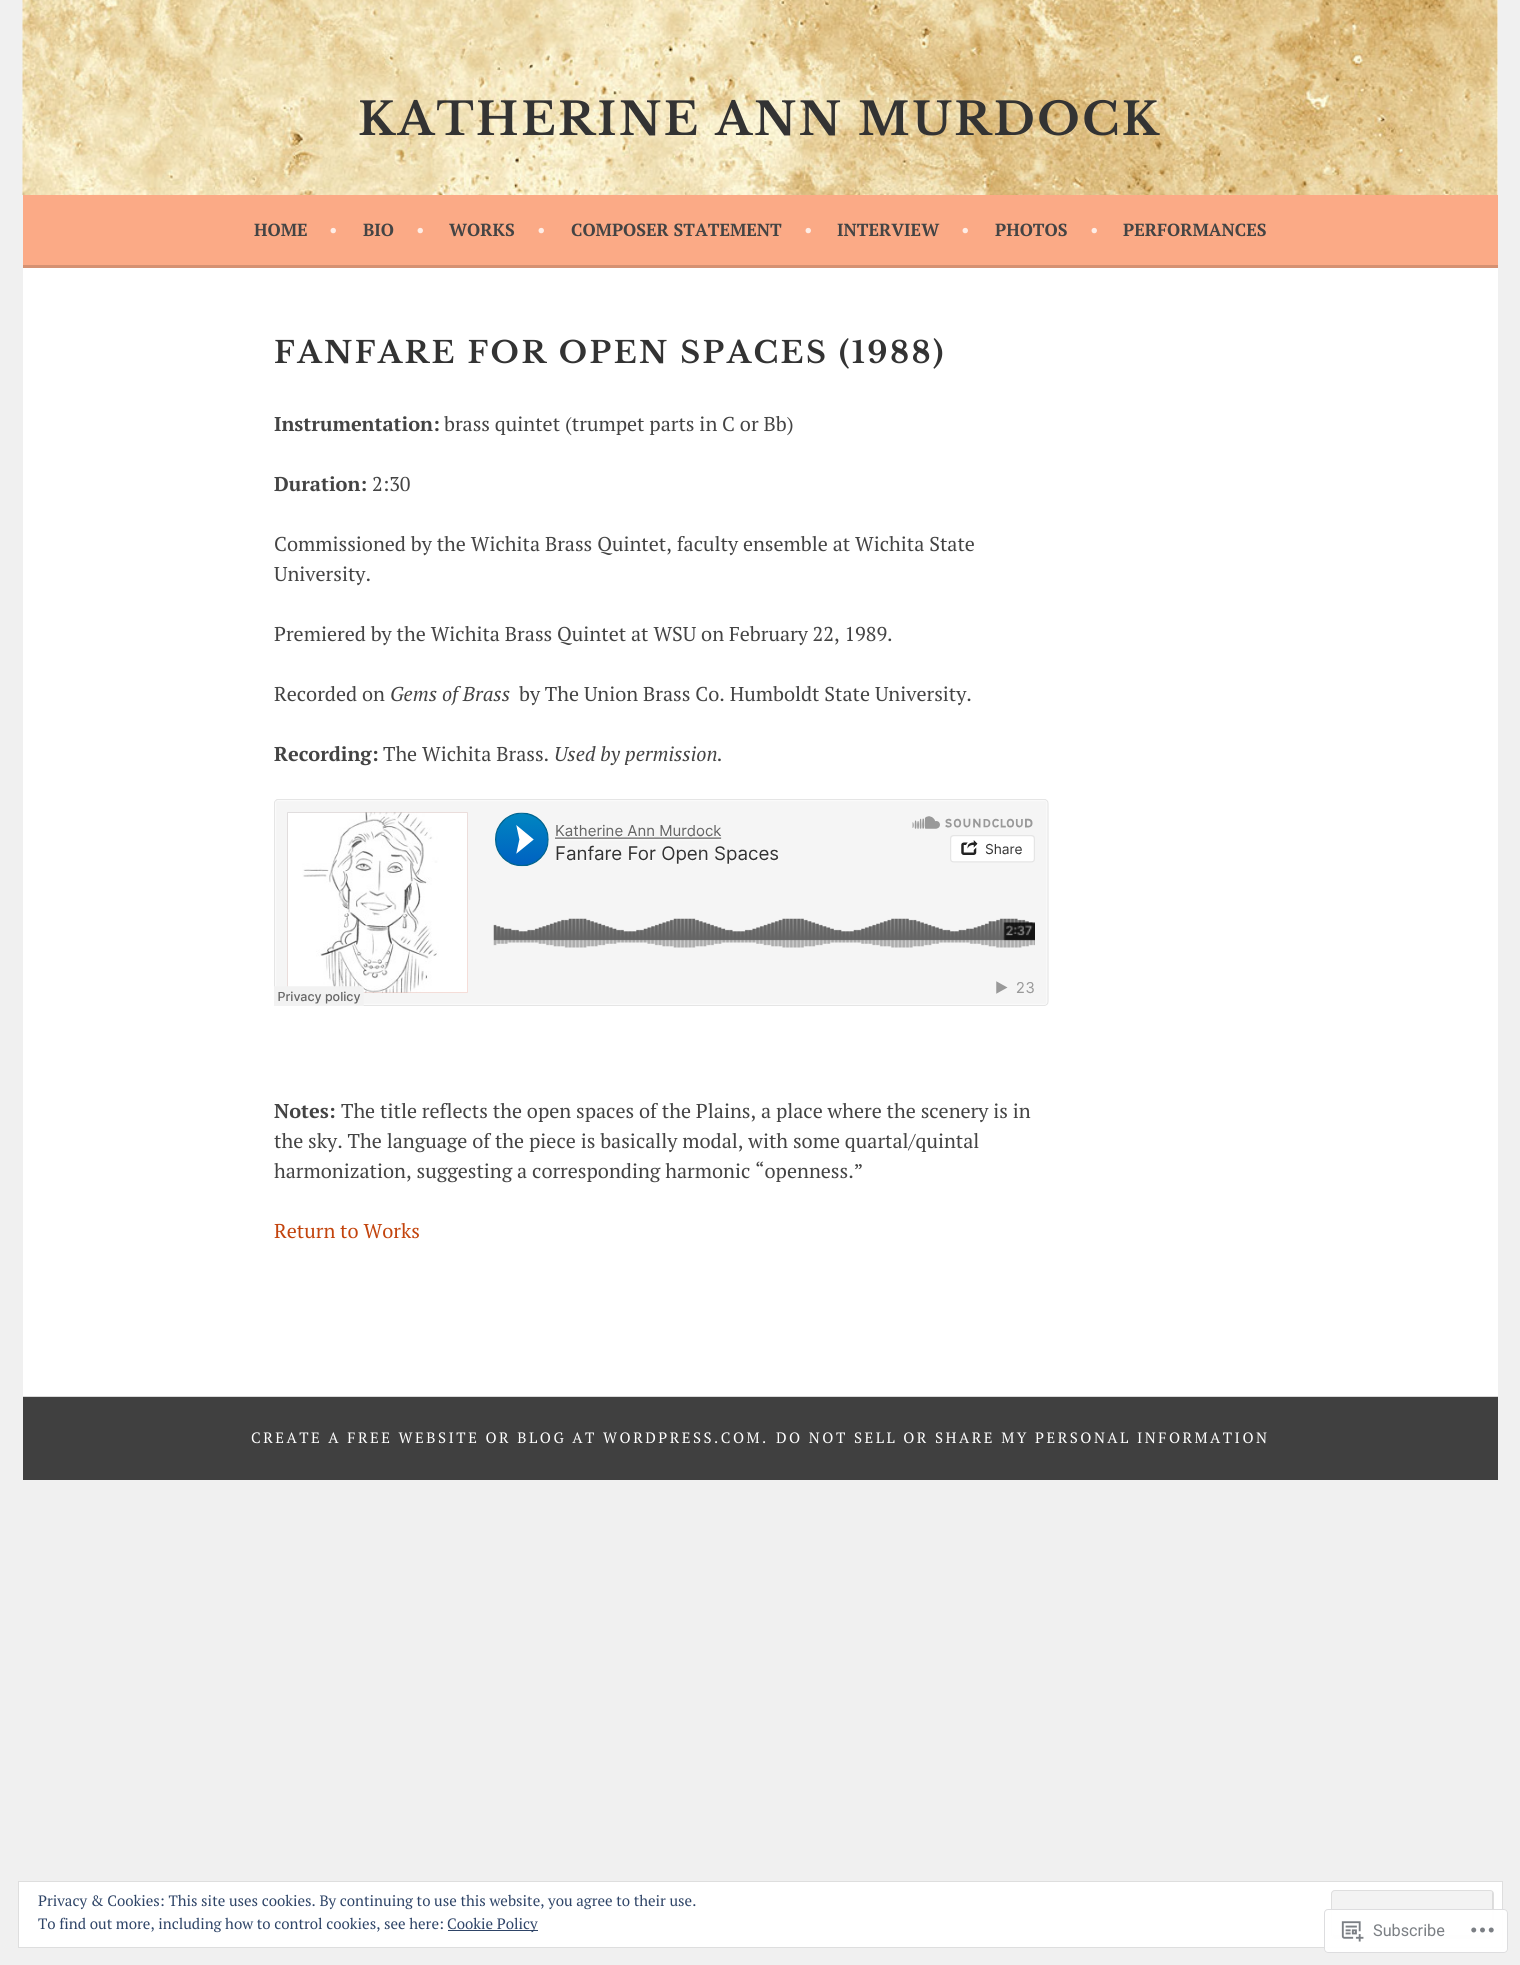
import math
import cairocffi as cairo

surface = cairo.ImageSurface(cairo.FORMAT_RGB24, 1520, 1965)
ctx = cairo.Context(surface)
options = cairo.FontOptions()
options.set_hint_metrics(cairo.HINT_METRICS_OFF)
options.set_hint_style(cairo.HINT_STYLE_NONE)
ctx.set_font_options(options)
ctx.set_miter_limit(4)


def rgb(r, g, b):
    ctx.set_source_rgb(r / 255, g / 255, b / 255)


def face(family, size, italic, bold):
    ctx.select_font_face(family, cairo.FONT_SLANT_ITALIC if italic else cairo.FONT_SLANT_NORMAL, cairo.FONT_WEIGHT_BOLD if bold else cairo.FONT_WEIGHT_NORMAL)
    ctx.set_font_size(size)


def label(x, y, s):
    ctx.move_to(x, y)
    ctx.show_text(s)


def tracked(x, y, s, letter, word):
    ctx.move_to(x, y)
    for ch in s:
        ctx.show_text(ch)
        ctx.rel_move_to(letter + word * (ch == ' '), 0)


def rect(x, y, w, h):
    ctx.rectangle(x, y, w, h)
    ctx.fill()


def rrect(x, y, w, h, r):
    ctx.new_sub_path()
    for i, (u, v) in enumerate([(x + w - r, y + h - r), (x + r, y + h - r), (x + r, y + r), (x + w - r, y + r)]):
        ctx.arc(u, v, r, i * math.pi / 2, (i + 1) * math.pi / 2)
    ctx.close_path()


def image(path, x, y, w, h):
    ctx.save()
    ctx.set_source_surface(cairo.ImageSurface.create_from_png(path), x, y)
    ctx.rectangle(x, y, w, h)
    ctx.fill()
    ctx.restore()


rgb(240, 240, 240)
ctx.paint()
rgb(255, 255, 255)
rect(1497, 0, 1, 195)
image('image0.png', 22, 0, 1476, 195)
face('Libre Baskerville', 45, 0, 1)
rgb(51, 51, 51)
tracked(358, 135, 'KATHERINE ANN MURDOCK', 2.5, 0)
rgb(251, 170, 134)
rect(23, 195, 1475, 70)
rgb(213, 145, 114)
rect(23, 265, 1475, 3)
face('PT Serif', 17.5, 0, 1)
rgb(68, 68, 68)
label(254, 236, 'HOME')
rgb(254, 237, 230)
label(329, 236, '•')
rgb(68, 68, 68)
label(363, 236, 'BIO')
rgb(254, 237, 230)
label(416, 236, '•')
rgb(68, 68, 68)
label(449, 236, 'WORKS')
rgb(254, 237, 230)
label(537, 236, '•')
rgb(68, 68, 68)
label(571, 236, 'COMPOSER STATEMENT')
rgb(254, 237, 230)
label(804, 236, '•')
rgb(68, 68, 68)
label(837, 236, 'INTERVIEW')
rgb(254, 237, 230)
label(961, 236, '•')
rgb(68, 68, 68)
label(995, 236, 'PHOTOS')
rgb(254, 237, 230)
label(1090, 236, '•')
rgb(68, 68, 68)
label(1123, 236, 'PERFORMANCES')
rgb(255, 255, 255)
rect(23, 268, 1475, 1128)
face('Libre Baskerville', 30, 0, 1)
rgb(51, 51, 51)
tracked(274, 363, 'FANFARE FOR OPEN SPACES (1988)', 2.5, 0)
face('PT Serif', 20, 0, 1)
rgb(68, 68, 68)
label(274, 431, 'Instrumentation:')
face('PT Serif', 20, 0, 0)
label(444, 431, 'brass quintet (trumpet parts in C or Bb)')
face('PT Serif', 20, 0, 1)
label(274, 491, 'Duration:')
face('PT Serif', 20, 0, 0)
label(372, 491, '2:30')
label(274, 551, 'Commissioned by the Wichita Brass Quintet, faculty ensemble at Wichita State')
label(274, 581, 'University.')
label(274, 641, 'Premiered by the Wichita Brass Quintet at WSU on February 22, 1989.')
label(274, 701, 'Recorded on')
face('PT Serif', 20, 1, 0)
label(390, 701, 'Gems of Brass')
face('PT Serif', 20, 0, 0)
label(519, 701, 'by The Union Brass Co. Humboldt State University.')
face('PT Serif', 20, 0, 1)
label(274, 761, 'Recording:')
face('PT Serif', 20, 0, 0)
label(383, 761, 'The Wichita Brass.')
face('PT Serif', 20, 1, 0)
label(554, 761, 'Used by permission.')
image('image1.png', 274, 799, 775, 207)
face('PT Serif', 20, 0, 1)
label(274, 1118, 'Notes:')
face('PT Serif', 20, 0, 0)
label(341, 1118, 'The title reflects the open spaces of the Plains, a place where the scenery is in')
label(274, 1148, 'the sky. The language of the piece is basically modal, with some quartal/quintal')
label(274, 1178, 'harmonization, suggesting a corresponding harmonic “openness.”')
rgb(195, 68, 13)
label(274, 1238, 'Return to Works')
rgb(64, 64, 64)
rect(23, 1397, 1475, 83)
rgb(217, 217, 217)
rect(23, 1396, 1475, 1)
face('PT Serif', 15, 0, 0)
rgb(255, 255, 255)
tracked(251, 1443, 'CREATE A FREE WEBSITE OR BLOG AT WORDPRESS.COM.', 2.5, 0)
tracked(776, 1443, 'DO NOT SELL OR SHARE MY PERSONAL INFORMATION', 2.5, 0)
ctx.rectangle(18.5, 1881.5, 1484, 66)
ctx.fill_preserve()
rgb(222, 222, 222)
ctx.set_line_width(1)
ctx.stroke()
rgb(46, 68, 103)
label(38, 1906, 'Privacy & Cookies: This site uses cookies. By continuing to use this website, you agree to their use.')
rgb(243, 243, 243)
rrect(1331, 1890, 163, 49, 4)
ctx.fill()
rgb(219, 219, 219)
ctx.new_path()
ctx.move_to(1333, 1934)
ctx.line_to(1333, 1936)
ctx.curve_to(1333, 1937, 1334, 1938, 1336, 1938)
ctx.line_to(1490, 1938)
ctx.curve_to(1492, 1938, 1493, 1937, 1493, 1936)
ctx.line_to(1493, 1894)
ctx.curve_to(1493, 1893, 1493, 1892, 1492, 1891)
ctx.line_to(1492, 1932)
ctx.curve_to(1492, 1934, 1491, 1935, 1490, 1935)
ctx.line_to(1335, 1935)
ctx.close_path()
ctx.fill()
rrect(1331.5, 1890.5, 162, 48, 3.5)
rgb(222, 222, 222)
ctx.stroke()
rgb(46, 68, 103)
label(38, 1929, 'To find out more, including how to control cookies, see here:')
rect(448, 1930, 90, 1)
label(447, 1929, 'Cookie Policy')
ctx.set_source_rgba(1, 1, 1, 0.98)
rrect(1324, 1909, 184, 44, 4)
ctx.fill()
rrect(1324.5, 1909.5, 183, 43, 3.5)
ctx.set_source_rgba(0.863, 0.863, 0.871, 0.98)
ctx.stroke()
image('image2.png', 1341, 1921, 23, 21)
face('Roboto', 16.25, 0, 0)
rgb(123, 127, 132)
label(1373, 1936, 'Subscribe')
image('image3.png', 1471, 1927, 23, 6)
surface.write_to_png('render.png')
